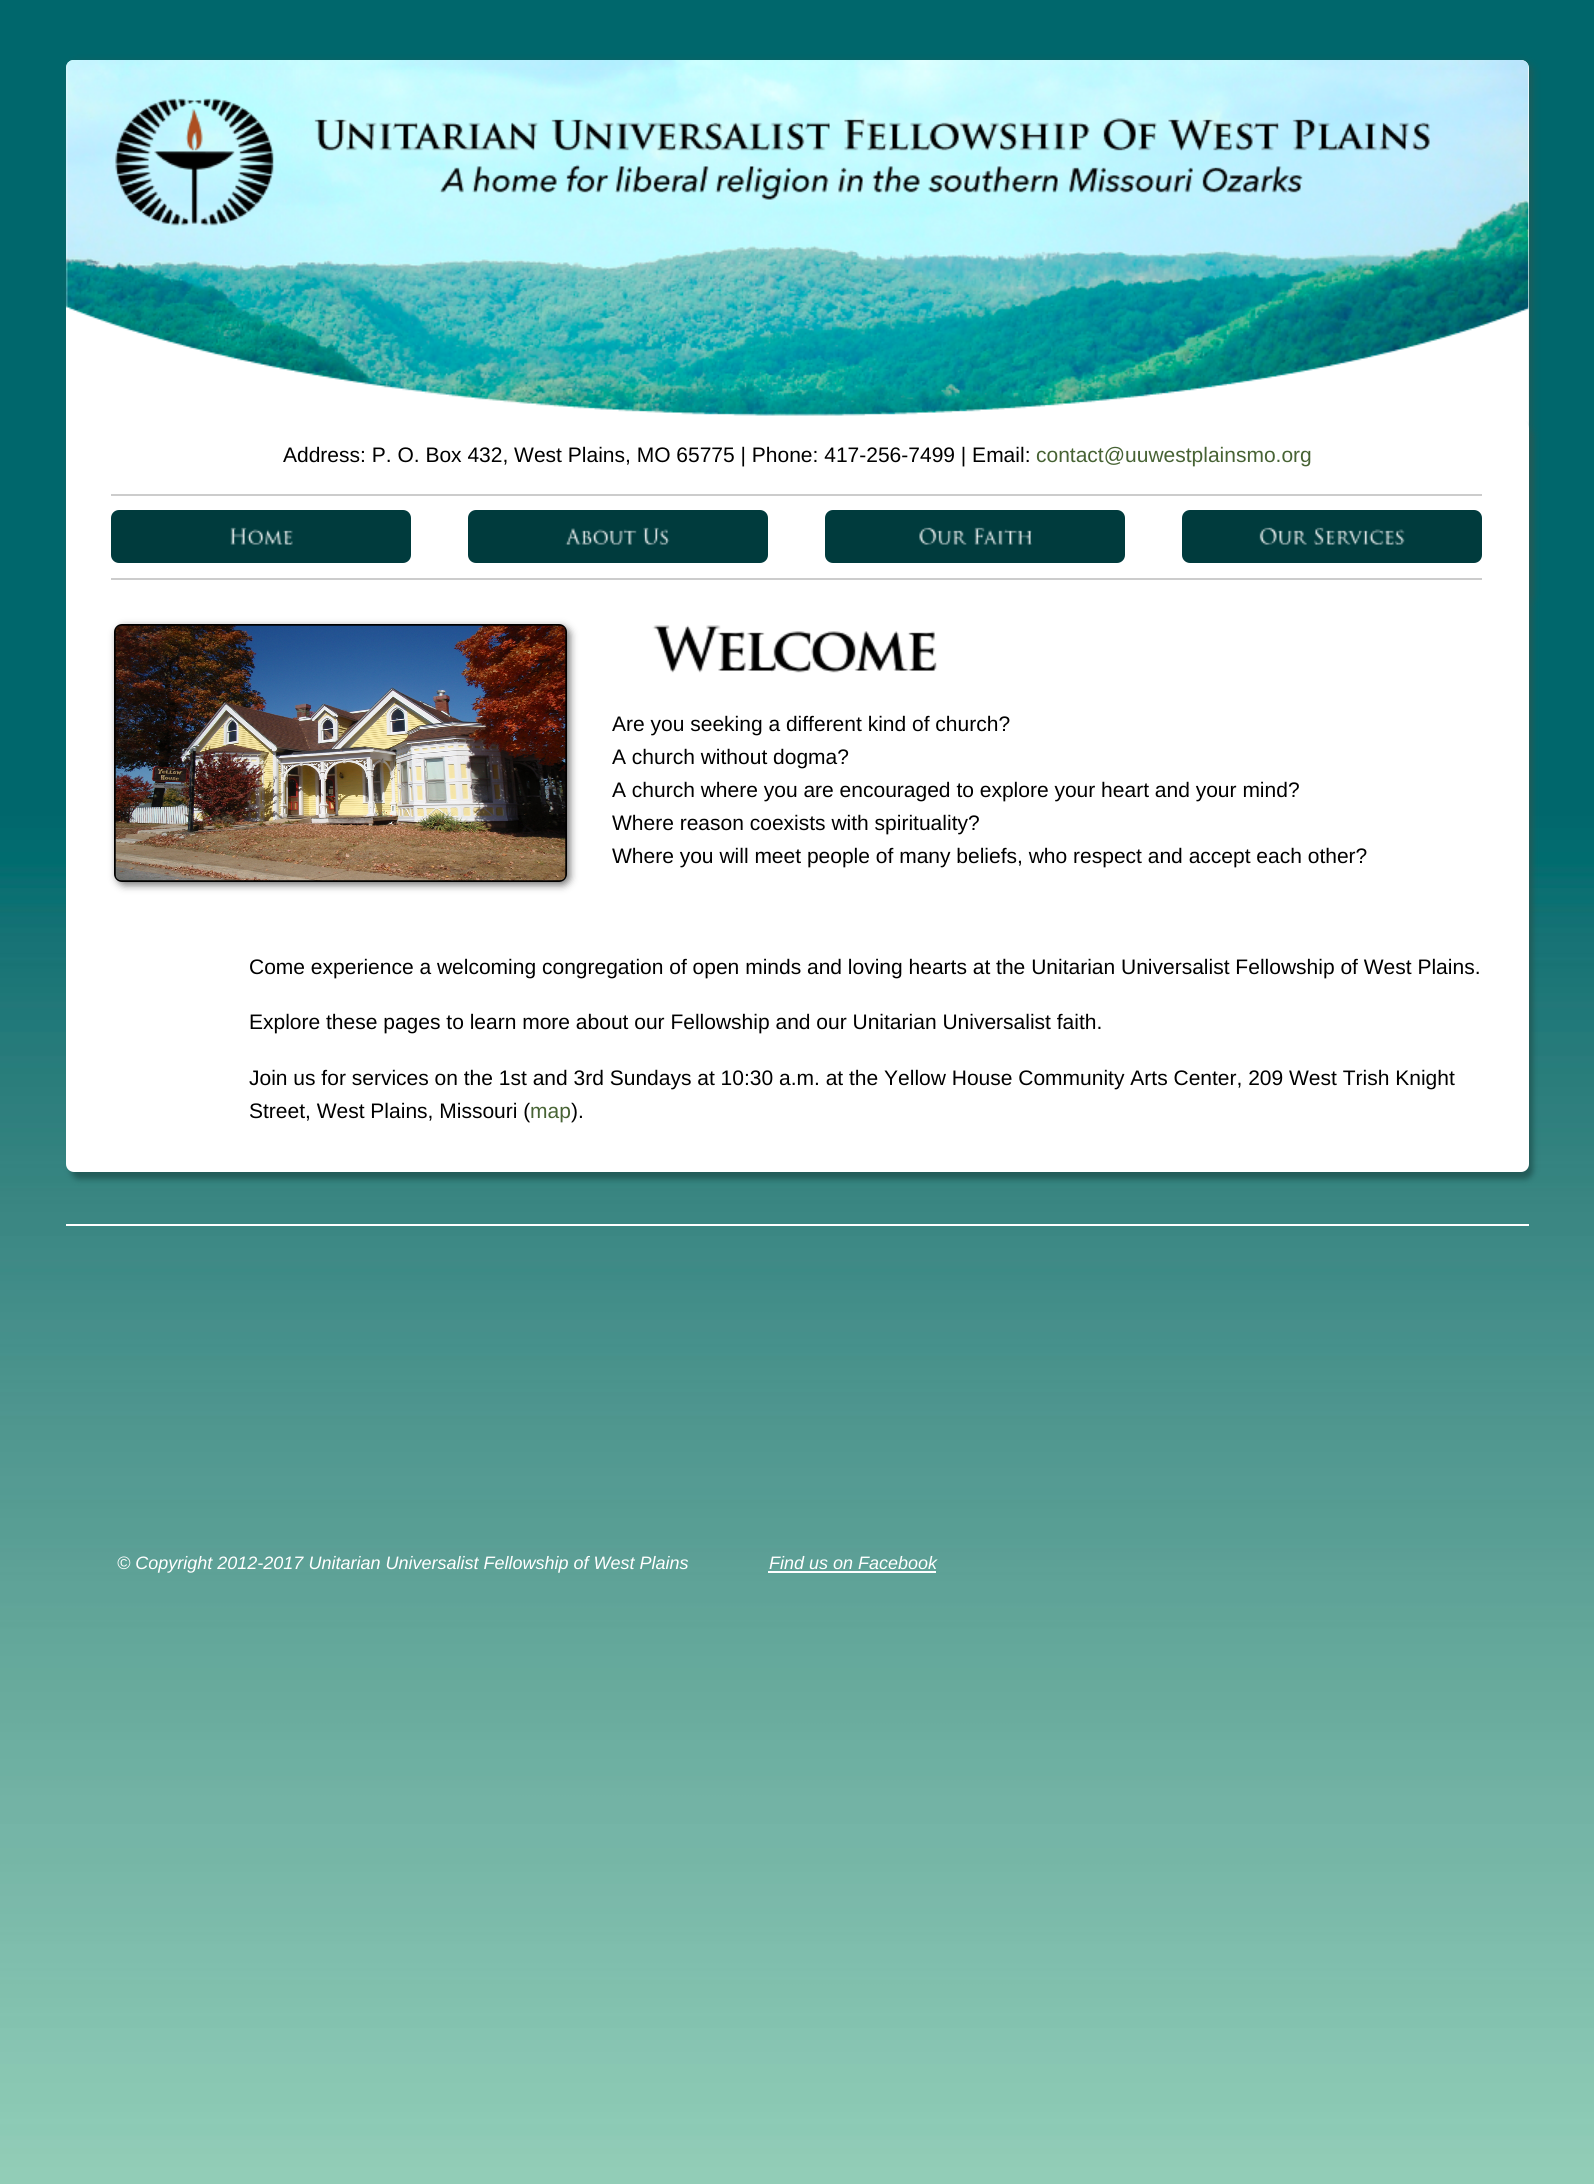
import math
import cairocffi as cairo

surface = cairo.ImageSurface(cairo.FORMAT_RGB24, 1594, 2184)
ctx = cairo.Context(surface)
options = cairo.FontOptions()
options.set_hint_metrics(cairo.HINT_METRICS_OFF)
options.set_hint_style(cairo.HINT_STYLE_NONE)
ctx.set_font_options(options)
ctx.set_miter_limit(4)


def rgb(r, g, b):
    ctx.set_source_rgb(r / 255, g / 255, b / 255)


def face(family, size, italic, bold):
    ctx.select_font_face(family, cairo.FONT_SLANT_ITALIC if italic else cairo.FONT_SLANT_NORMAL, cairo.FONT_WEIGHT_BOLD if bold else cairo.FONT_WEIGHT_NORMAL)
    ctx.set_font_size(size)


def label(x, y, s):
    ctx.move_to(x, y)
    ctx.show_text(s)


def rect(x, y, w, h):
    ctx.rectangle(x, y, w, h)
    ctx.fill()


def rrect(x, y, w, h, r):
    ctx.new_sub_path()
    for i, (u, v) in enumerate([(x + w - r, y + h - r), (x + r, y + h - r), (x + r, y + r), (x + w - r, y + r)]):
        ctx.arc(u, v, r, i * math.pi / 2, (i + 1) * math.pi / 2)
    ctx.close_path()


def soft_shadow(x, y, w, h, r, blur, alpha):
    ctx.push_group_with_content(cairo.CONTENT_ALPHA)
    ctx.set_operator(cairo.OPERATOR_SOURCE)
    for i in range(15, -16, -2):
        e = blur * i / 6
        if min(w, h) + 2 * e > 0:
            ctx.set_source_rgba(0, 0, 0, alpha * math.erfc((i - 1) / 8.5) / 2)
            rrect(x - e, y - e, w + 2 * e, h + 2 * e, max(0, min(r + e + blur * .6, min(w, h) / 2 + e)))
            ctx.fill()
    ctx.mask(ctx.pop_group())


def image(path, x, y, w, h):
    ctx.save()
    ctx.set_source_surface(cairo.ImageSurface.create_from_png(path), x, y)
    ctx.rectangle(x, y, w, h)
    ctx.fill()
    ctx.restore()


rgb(255, 255, 255)
ctx.paint()
image('image0.png', 0, 0, 1594, 2184)
rgb(34, 91, 88)
soft_shadow(69, 63, 1463, 540, 8, 4, 1)
rgb(255, 255, 255)
rrect(66, 60, 1463, 540, 8)
ctx.fill()
image('image1.png', 66, 60, 1463, 368)
image('image2.png', 115, 98, 1315, 128)
rgb(34, 91, 88)
soft_shadow(71, 428, 1462, 751, 8, 3, 1)
rgb(255, 255, 255)
rrect(66, 420, 1463, 752, 8)
ctx.fill()
face('Liberation Sans', 21, 0, 0)
rgb(0, 0, 0)
label(283, 462, 'Address: P. O. Box 432, West Plains, MO 65775 | Phone: 417-256-7499 | Email:')
rgb(71, 99, 52)
label(1036, 462, 'contact@uuwestplainsmo.org')
rgb(204, 204, 204)
rect(111, 494, 1371, 2)
rect(111, 578, 1371, 2)
rgb(0, 59, 61)
rrect(111, 510, 300, 53, 8)
ctx.fill()
image('image3.png', 230, 527, 63, 18)
rrect(468, 510, 300, 53, 8)
ctx.fill()
image('image4.png', 565, 528, 72, 17)
image('image5.png', 643, 527, 27, 18)
rrect(825, 510, 300, 53, 8)
ctx.fill()
image('image6.png', 919, 527, 48, 18)
image('image7.png', 974, 527, 58, 18)
rrect(1182, 510, 300, 53, 8)
ctx.fill()
image('image8.png', 1259, 527, 48, 18)
image('image9.png', 1313, 527, 92, 18)
rgb(119, 119, 119)
soft_shadow(117, 627, 453, 258, 8, 4, 1)
rrect(115, 625, 451, 256, 7)
rgb(0, 0, 0)
ctx.stroke()
image('image10.png', 115, 625, 451, 256)
image('image11.png', 652, 625, 285, 48)
label(612, 731, 'Are you seeking a different kind of church?')
label(612, 764, 'A church without dogma?')
label(612, 797, 'A church where you are encouraged to explore your heart and your mind?')
label(612, 830, 'Where reason coexists with spirituality?')
label(612, 863, 'Where you will meet people of many beliefs, who respect and accept each other?')
label(249, 974, 'Come experience a welcoming congregation of open minds and loving hearts at the Unitarian Universalist Fellowship of West Plains.')
label(249, 1029, 'Explore these pages to learn more about our Fellowship and our Unitarian Universalist faith.')
label(249, 1085, 'Join us for services on the 1st and 3rd Sundays at 10:30 a.m. at the Yellow House Community Arts Center, 209 West Trish Knight')
label(249, 1118, 'Street, West Plains, Missouri (')
rgb(71, 99, 52)
label(530, 1118, 'map')
rgb(0, 0, 0)
label(571, 1118, ').')
rgb(255, 255, 255)
rect(66, 1224, 1463, 2)
face('Liberation Sans', 18, 1, 0)
label(117, 1569, '© Copyright 2012-2017 Unitarian Universalist Fellowship of West Plains')
label(769, 1569, 'Find us on Facebook')
rect(768, 1571, 168, 2)
surface.write_to_png('render.png')
